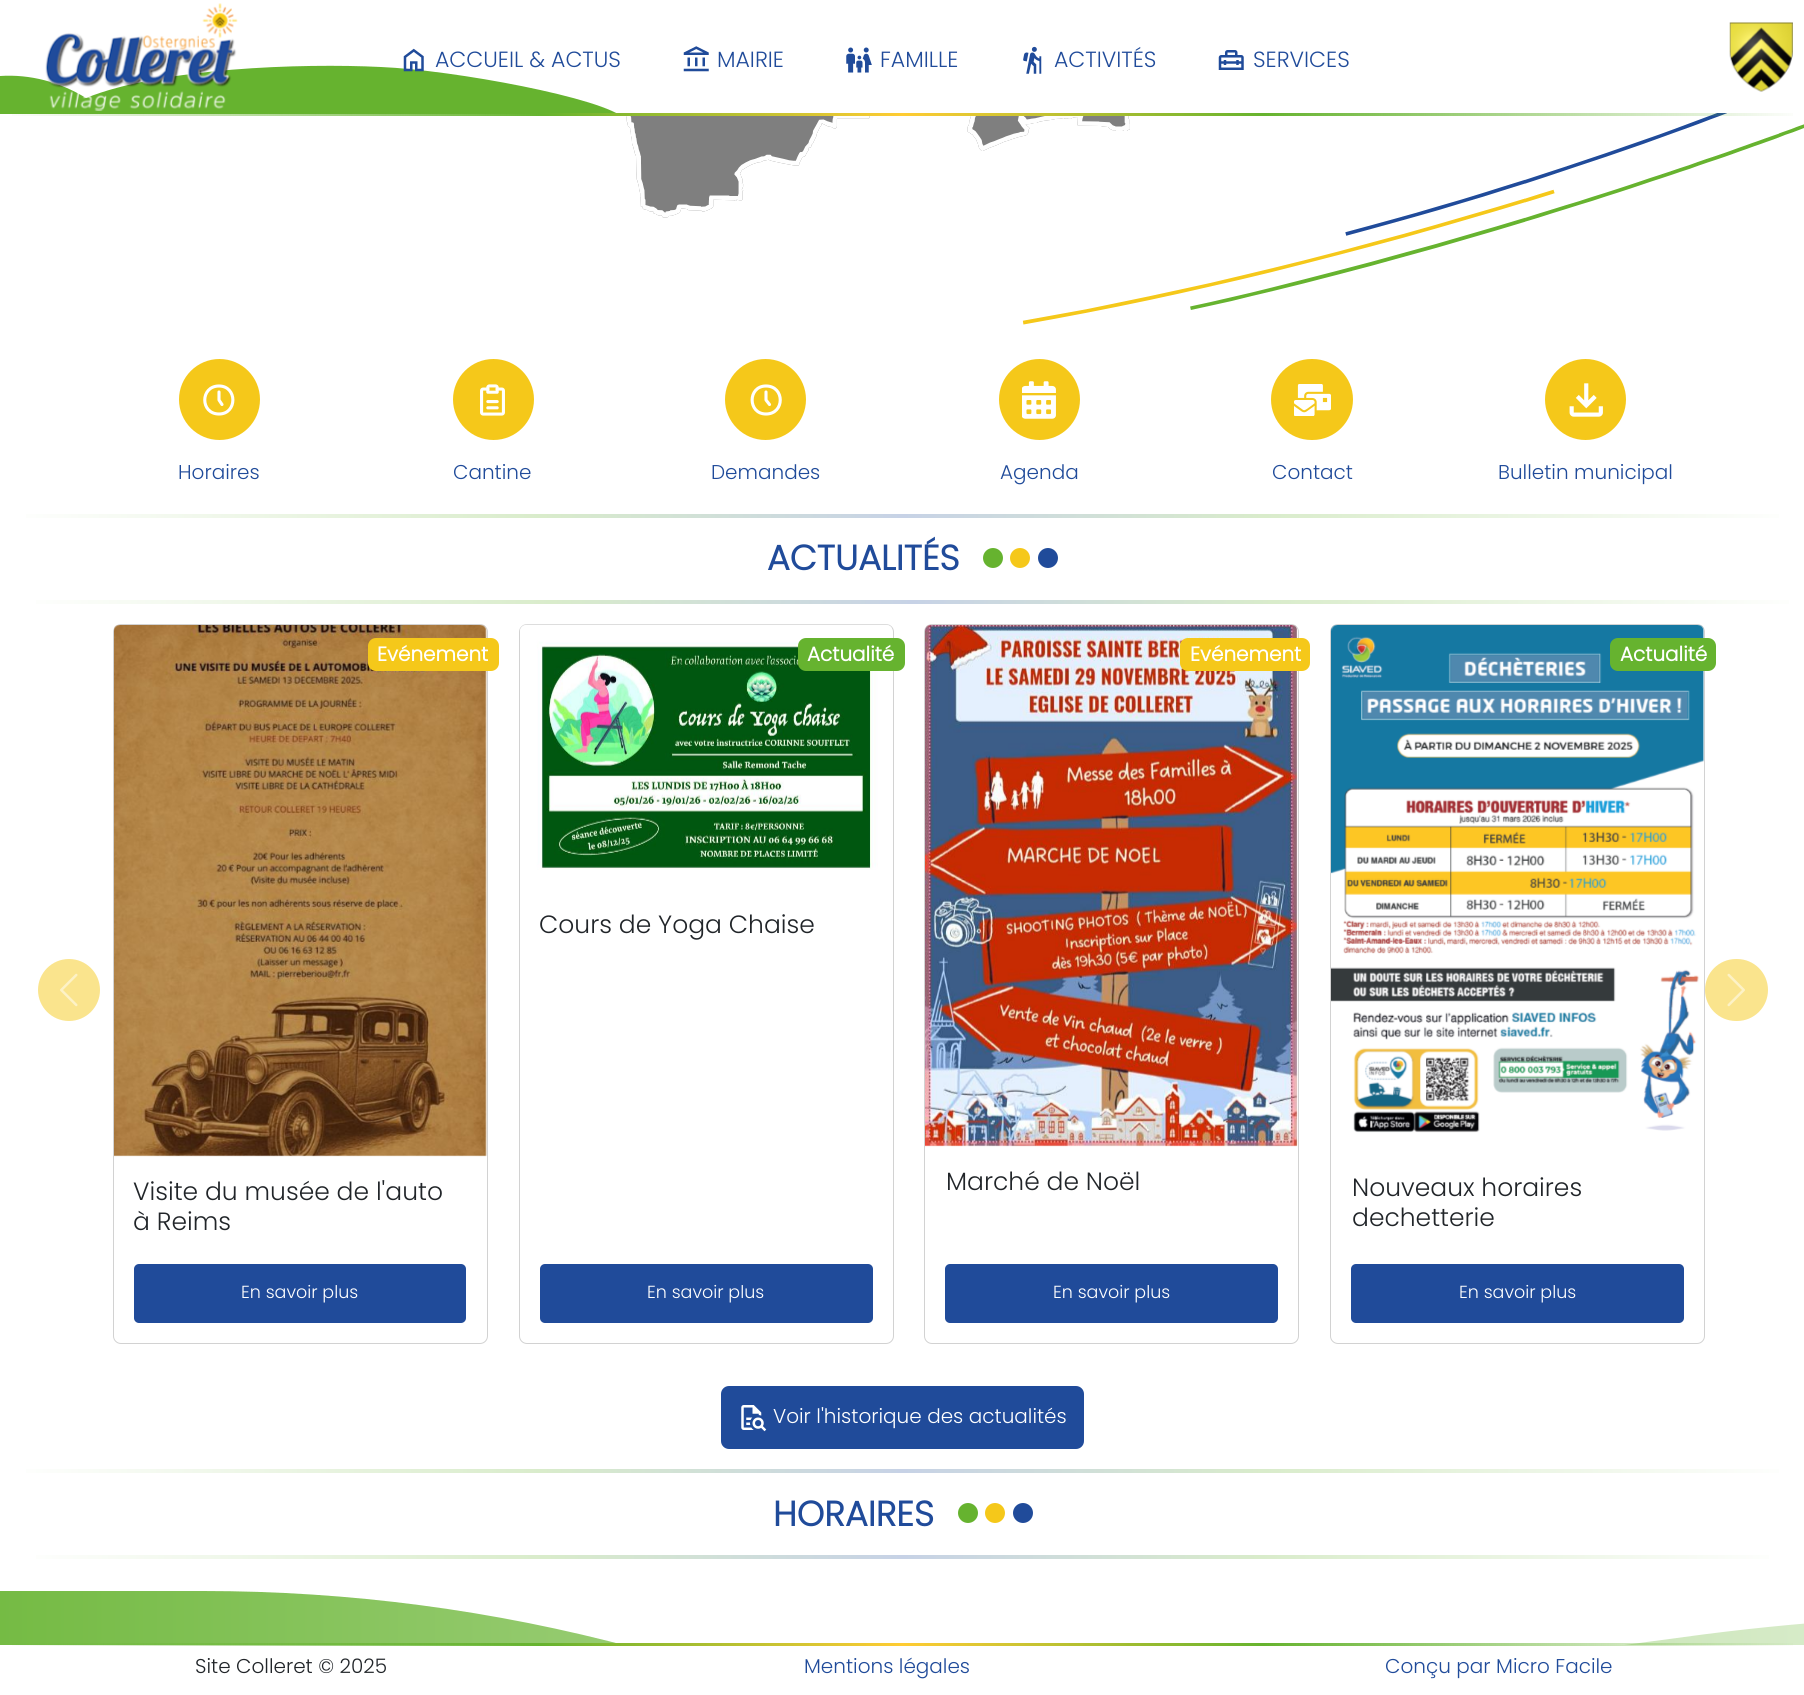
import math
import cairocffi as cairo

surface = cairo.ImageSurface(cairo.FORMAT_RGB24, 1804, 1695)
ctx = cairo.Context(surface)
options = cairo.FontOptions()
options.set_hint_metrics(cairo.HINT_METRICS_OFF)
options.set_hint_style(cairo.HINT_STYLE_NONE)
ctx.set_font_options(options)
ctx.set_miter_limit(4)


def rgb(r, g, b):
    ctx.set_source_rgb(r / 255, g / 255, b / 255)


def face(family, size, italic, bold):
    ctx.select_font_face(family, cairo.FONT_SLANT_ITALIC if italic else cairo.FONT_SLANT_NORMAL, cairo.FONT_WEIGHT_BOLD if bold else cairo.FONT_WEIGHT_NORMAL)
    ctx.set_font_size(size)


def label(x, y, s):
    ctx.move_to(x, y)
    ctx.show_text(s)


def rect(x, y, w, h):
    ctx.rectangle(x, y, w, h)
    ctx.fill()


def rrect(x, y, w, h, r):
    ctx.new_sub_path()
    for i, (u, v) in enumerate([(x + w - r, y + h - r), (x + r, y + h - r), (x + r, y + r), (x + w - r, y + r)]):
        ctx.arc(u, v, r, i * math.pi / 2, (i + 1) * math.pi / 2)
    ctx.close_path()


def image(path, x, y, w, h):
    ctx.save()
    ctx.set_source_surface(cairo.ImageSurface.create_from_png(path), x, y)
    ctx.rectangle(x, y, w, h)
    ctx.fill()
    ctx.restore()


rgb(255, 255, 255)
ctx.paint()
ctx.save()
ctx.rectangle(0, 65, 625, 49)
ctx.clip()
rgb(102, 179, 47)
ctx.new_path()
ctx.move_to(0, 76)
ctx.curve_to(30, 74, 60, 82, 86, 98)
ctx.curve_to(160, 68, 301, 63, 381, 67)
ctx.curve_to(453, 70, 605, 98, 625, 119)
ctx.line_to(0, 119)
ctx.close_path()
ctx.fill()
ctx.restore()
image('image0.png', 45, 3, 193, 108)
image('image1.png', 403, 48, 21, 24)
face('Poppins Light', 22, 0, 0)
rgb(32, 75, 154)
label(435, 67, 'ACCUEIL & ACTUS')
image('image2.png', 683, 46, 26, 26)
label(717, 67, 'MAIRIE')
image('image3.png', 846, 47, 26, 26)
label(880, 67, 'FAMILLE')
image('image4.png', 1023, 46, 19, 28)
label(1054, 67, 'ACTIVITÉS')
image('image5.png', 1218, 50, 26, 20)
label(1253, 67, 'SERVICES')
image('image6.png', 1729, 22, 64, 70)
image('image7.png', 626, 116, 504, 102)
image('image8.png', 1022, 113, 782, 212)
gradient = cairo.LinearGradient(0, 114, 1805, 114)
gradient.add_color_stop_rgba(0, 0.4, 0.702, 0.184, 0)
gradient.add_color_stop_rgba(0.3, 0.4, 0.702, 0.184, 1)
gradient.add_color_stop_rgba(0.5, 1, 0.8, 0.2, 1)
gradient.add_color_stop_rgba(0.7, 0.4, 0.702, 0.184, 1)
gradient.add_color_stop_rgba(1, 0.4, 0.702, 0.184, 0)
ctx.set_source(gradient)
rect(12, 113, 1781, 3)
rgb(245, 200, 26)
ctx.arc(219.5, 399.5, 40.5, 0, 2 * math.pi)
ctx.fill()
ctx.new_path()
ctx.move_to(219, 414)
ctx.curve_to(237.5, 414, 237.5, 386, 219, 386)
ctx.curve_to(200, 386, 200, 414, 219, 414)
ctx.close_path()
ctx.move_to(219, 392)
ctx.line_to(219, 400)
ctx.line_to(222, 404.5)
rgb(255, 255, 255)
ctx.set_line_width(3.1)
ctx.set_line_cap(cairo.LINE_CAP_ROUND)
ctx.set_line_join(cairo.LINE_JOIN_ROUND)
ctx.stroke()
face('Poppins Light', 20, 0, 0)
rgb(32, 75, 154)
label(178, 479, 'Horaires')
rgb(245, 200, 26)
ctx.new_path()
ctx.arc(493.5, 399.5, 40.5, 0, 2 * math.pi)
ctx.fill()
image('image9.png', 480, 384, 25, 32)
rgb(32, 75, 154)
label(453, 479, 'Cantine')
rgb(245, 200, 26)
ctx.new_path()
ctx.arc(765.5, 399.5, 40.5, 0, 2 * math.pi)
ctx.fill()
ctx.new_path()
ctx.move_to(766, 414)
ctx.curve_to(785, 414, 785, 386, 766, 386)
ctx.curve_to(747.5, 386, 747.5, 414, 766, 414)
ctx.close_path()
ctx.move_to(766, 392)
ctx.line_to(766, 400)
ctx.line_to(769.5, 404.5)
rgb(255, 255, 255)
ctx.stroke()
rgb(32, 75, 154)
label(711, 479, 'Demandes')
rgb(245, 200, 26)
ctx.new_path()
ctx.arc(1039.5, 399.5, 40.5, 0, 2 * math.pi)
ctx.fill()
image('image10.png', 1022, 381, 34, 38)
rgb(32, 75, 154)
label(1000, 479, 'Agenda')
rgb(245, 200, 26)
rrect(1271, 359, 82, 81, 40.5)
ctx.fill()
image('image11.png', 1294, 384, 37, 32)
rgb(32, 75, 154)
label(1272, 479, 'Contact')
rgb(245, 200, 26)
ctx.new_path()
ctx.arc(1585.5, 399.5, 40.5, 0, 2 * math.pi)
ctx.fill()
image('image12.png', 1569, 383, 34, 34)
rgb(32, 75, 154)
label(1498, 479, 'Bulletin municipal')
gradient = cairo.LinearGradient(0, 516, 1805, 516)
gradient.add_color_stop_rgba(0, 1, 1, 1, 1)
gradient.add_color_stop_rgba(0.3, 0.851, 0.925, 0.796, 1)
gradient.add_color_stop_rgba(0.5, 0.78, 0.824, 0.902, 1)
gradient.add_color_stop_rgba(0.7, 0.851, 0.925, 0.796, 1)
gradient.add_color_stop_rgba(1, 1, 1, 1, 1)
ctx.set_source(gradient)
rect(26, 514, 1753, 4)
face('Poppins', 35, 0, 1)
rgb(32, 75, 154)
label(767, 570, 'ACTUALITÉS')
rgb(102, 179, 47)
ctx.new_path()
ctx.arc(993, 558, 10, 0, 2 * math.pi)
ctx.fill()
rgb(245, 200, 26)
ctx.arc(1020, 558, 10, 0, 2 * math.pi)
ctx.fill()
rgb(32, 75, 154)
ctx.arc(1048, 558, 10, 0, 2 * math.pi)
ctx.fill()
gradient = cairo.LinearGradient(10, 602, 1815, 602)
gradient.add_color_stop_rgba(0, 1, 1, 1, 1)
gradient.add_color_stop_rgba(0.3, 0.851, 0.925, 0.796, 1)
gradient.add_color_stop_rgba(0.5, 0.78, 0.824, 0.902, 1)
gradient.add_color_stop_rgba(0.7, 0.851, 0.925, 0.796, 1)
gradient.add_color_stop_rgba(1, 1, 1, 1, 1)
ctx.set_source(gradient)
rect(36, 600, 1753, 4)
rgb(250, 228, 141)
ctx.arc(69, 990, 31, 0, 2 * math.pi)
ctx.fill()
image('image13.png', 60, 973, 18, 34)
rrect(113.5, 624.5, 374, 719, 7.5)
rgb(210, 210, 210)
ctx.set_line_width(1)
ctx.set_line_cap(cairo.LINE_CAP_BUTT)
ctx.set_line_join(cairo.LINE_JOIN_MITER)
ctx.stroke()
image('image14.png', 114, 625, 373, 532)
rgb(245, 200, 26)
rrect(368, 638, 131, 33, 8)
ctx.fill()
face('Poppins', 20, 0, 1)
rgb(255, 255, 255)
label(377, 661, 'Evénement')
face('Poppins Light', 25, 0, 0)
rgb(33, 37, 41)
label(133, 1200, 'Visite du musée de l\'auto')
label(133, 1230, 'à Reims')
rgb(32, 75, 154)
rrect(134, 1264, 332, 59, 5)
ctx.fill()
face('Poppins Light', 17.5, 0, 0)
rgb(255, 255, 255)
label(241, 1298, 'En savoir plus')
rrect(519.5, 624.5, 374, 719, 7.5)
rgb(210, 210, 210)
ctx.stroke()
image('image15.png', 520, 624, 372, 246)
rgb(102, 179, 47)
rrect(798, 638, 107, 33, 8)
ctx.fill()
face('Poppins', 20, 0, 1)
rgb(255, 255, 255)
label(807, 661, 'Actualité')
face('Poppins Light', 25, 0, 0)
rgb(33, 37, 41)
label(539, 933, 'Cours de Yoga Chaise')
rgb(32, 75, 154)
rrect(540, 1264, 333, 59, 5)
ctx.fill()
face('Poppins Light', 17.5, 0, 0)
rgb(255, 255, 255)
label(647, 1298, 'En savoir plus')
rrect(924.5, 624.5, 374, 719, 7.5)
rgb(210, 210, 210)
ctx.stroke()
image('image16.png', 925, 625, 373, 522)
rgb(245, 200, 26)
rrect(1180, 638, 130, 33, 8)
ctx.fill()
face('Poppins', 20, 0, 1)
rgb(255, 255, 255)
label(1190, 661, 'Evénement')
face('Poppins Light', 25, 0, 0)
rgb(33, 37, 41)
label(946, 1190, 'Marché de Noël')
rgb(32, 75, 154)
rrect(945, 1264, 333, 59, 5)
ctx.fill()
face('Poppins Light', 17.5, 0, 0)
rgb(255, 255, 255)
label(1053, 1298, 'En savoir plus')
rrect(1330.5, 624.5, 374, 719, 7.5)
rgb(210, 210, 210)
ctx.stroke()
image('image17.png', 1331, 625, 373, 508)
rgb(102, 179, 47)
rrect(1610, 638, 106, 33, 8)
ctx.fill()
face('Poppins', 20, 0, 1)
rgb(255, 255, 255)
label(1620, 661, 'Actualité')
face('Poppins Light', 25, 0, 0)
rgb(33, 37, 41)
label(1352, 1196, 'Nouveaux horaires')
label(1352, 1226, 'dechetterie')
rgb(32, 75, 154)
rrect(1351, 1264, 333, 59, 5)
ctx.fill()
face('Poppins Light', 17.5, 0, 0)
rgb(255, 255, 255)
label(1459, 1298, 'En savoir plus')
rgb(250, 228, 141)
rrect(1705, 959, 63, 62, 31)
ctx.fill()
image('image18.png', 1727, 973, 18, 34)
rgb(32, 75, 154)
rrect(721, 1386, 363, 63, 8)
ctx.fill()
image('image19.png', 741, 1405, 26, 27)
face('Poppins Light', 20, 0, 0)
rgb(255, 255, 255)
label(773, 1423, 'Voir l\'historique des actualités')
gradient = cairo.LinearGradient(0, 1471, 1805, 1471)
gradient.add_color_stop_rgba(0, 1, 1, 1, 1)
gradient.add_color_stop_rgba(0.3, 0.851, 0.925, 0.796, 1)
gradient.add_color_stop_rgba(0.5, 0.78, 0.824, 0.902, 1)
gradient.add_color_stop_rgba(0.7, 0.851, 0.925, 0.796, 1)
gradient.add_color_stop_rgba(1, 1, 1, 1, 1)
ctx.set_source(gradient)
rect(26, 1469, 1753, 4)
face('Poppins', 35, 0, 1)
rgb(32, 75, 154)
label(773, 1526, 'HORAIRES')
rgb(102, 179, 47)
ctx.new_path()
ctx.arc(968, 1513, 10, 0, 2 * math.pi)
ctx.fill()
rgb(245, 200, 26)
ctx.arc(995, 1513, 10, 0, 2 * math.pi)
ctx.fill()
rgb(32, 75, 154)
ctx.arc(1023, 1513, 10, 0, 2 * math.pi)
ctx.fill()
gradient = cairo.LinearGradient(10, 1557, 1795, 1557)
gradient.add_color_stop_rgba(0, 1, 1, 1, 1)
gradient.add_color_stop_rgba(0.3, 0.851, 0.925, 0.796, 1)
gradient.add_color_stop_rgba(0.5, 0.78, 0.824, 0.902, 1)
gradient.add_color_stop_rgba(0.7, 0.851, 0.925, 0.796, 1)
gradient.add_color_stop_rgba(1, 1, 1, 1, 1)
ctx.set_source(gradient)
rect(36, 1555, 1733, 4)
gradient = cairo.LinearGradient(0, 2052, 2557, 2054)
gradient.add_color_stop_rgba(0, 0.459, 0.733, 0.267, 1)
gradient.add_color_stop_rgba(1, 1, 1, 1, 1)
ctx.set_source(gradient)
ctx.new_path()
ctx.move_to(1684, 1637)
ctx.line_to(1288, 1690)
ctx.curve_to(1069, 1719, 848, 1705, 635, 1648)
ctx.curve_to(494, 1610, 349, 1591, 203, 1591)
ctx.line_to(0, 1591)
ctx.line_to(0, 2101)
ctx.line_to(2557, 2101)
ctx.line_to(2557, 1663)
ctx.line_to(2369, 1638)
ctx.curve_to(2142, 1607, 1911, 1606, 1684, 1637)
ctx.close_path()
ctx.fill()
rgb(255, 255, 255)
rect(0, 1645, 1804, 50)
gradient = cairo.LinearGradient(0, 1644, 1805, 1644)
gradient.add_color_stop_rgba(0, 0.4, 0.702, 0.184, 0)
gradient.add_color_stop_rgba(0.3, 0.4, 0.702, 0.184, 1)
gradient.add_color_stop_rgba(0.5, 1, 0.8, 0.2, 1)
gradient.add_color_stop_rgba(0.7, 0.4, 0.702, 0.184, 1)
gradient.add_color_stop_rgba(1, 0.4, 0.702, 0.184, 0)
ctx.set_source(gradient)
rect(12, 1643, 1781, 3)
face('Poppins Light', 20, 0, 0)
rgb(33, 37, 41)
label(195, 1673, 'Site Colleret © 2025')
rgb(32, 75, 154)
label(804, 1673, 'Mentions légales')
label(1385, 1673, 'Conçu par Micro Facile')
surface.write_to_png('render.png')
